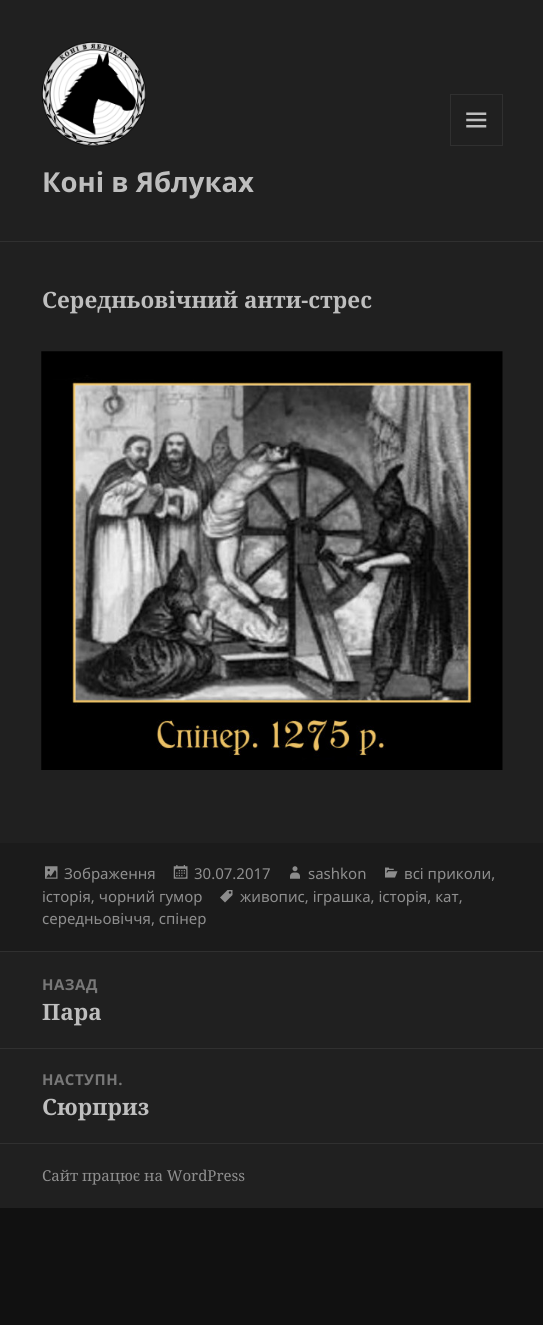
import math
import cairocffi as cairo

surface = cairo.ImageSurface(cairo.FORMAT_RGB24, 543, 1325)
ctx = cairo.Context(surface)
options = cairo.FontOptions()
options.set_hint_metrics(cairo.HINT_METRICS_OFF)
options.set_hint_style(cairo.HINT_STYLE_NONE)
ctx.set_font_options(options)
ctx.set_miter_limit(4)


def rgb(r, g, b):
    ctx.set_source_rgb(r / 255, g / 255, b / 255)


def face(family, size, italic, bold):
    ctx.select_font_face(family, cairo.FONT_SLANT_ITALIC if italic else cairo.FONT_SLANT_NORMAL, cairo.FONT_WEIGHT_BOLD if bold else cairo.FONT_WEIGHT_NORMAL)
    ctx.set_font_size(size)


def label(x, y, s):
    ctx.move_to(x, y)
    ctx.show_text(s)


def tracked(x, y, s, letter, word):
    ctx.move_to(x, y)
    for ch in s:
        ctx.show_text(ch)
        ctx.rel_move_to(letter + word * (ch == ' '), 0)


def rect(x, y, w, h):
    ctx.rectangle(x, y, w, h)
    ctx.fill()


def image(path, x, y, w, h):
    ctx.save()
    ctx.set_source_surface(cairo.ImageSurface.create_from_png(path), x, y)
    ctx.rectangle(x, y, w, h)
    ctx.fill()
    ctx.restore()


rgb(17, 17, 17)
ctx.paint()
rgb(32, 32, 32)
rect(0, 0, 543, 843)
rgb(48, 48, 48)
rect(0, 241, 543, 1)
image('image0.png', 41, 41, 105, 106)
ctx.rectangle(450.5, 94.5, 52, 51)
ctx.set_line_width(1)
ctx.stroke()
image('image1.png', 466, 112, 21, 16)
face('Noto Sans', 27.5, 0, 1)
rgb(190, 190, 190)
label(42, 192, 'Коні в Яблуках')
face('Noto Serif', 22.5, 0, 1)
label(42, 308, 'Середньовічний анти-стрес')
image('image2.png', 41, 351, 462, 419)
rgb(27, 27, 27)
rect(0, 843, 543, 108)
image('image3.png', 385, 867, 13, 11)
face('Noto Sans', 15, 0, 0)
rgb(143, 143, 143)
label(404, 879, 'всі приколи,')
label(42, 902, 'історія, чорний гумор')
image('image4.png', 45, 866, 13, 13)
label(64, 879, 'Зображення')
image('image5.png', 173, 865, 15, 14)
label(194, 879, '30.07.2017')
image('image6.png', 290, 866, 10, 13)
label(308, 879, 'sashkon')
image('image7.png', 220, 890, 13, 13)
label(240, 902, 'живопис, іграшка, історія, кат,')
label(42, 924, 'середньовіччя, спінер')
rgb(32, 32, 32)
rect(0, 952, 543, 191)
rgb(48, 48, 48)
rect(0, 951, 543, 1)
face('Noto Sans', 15, 0, 1)
rgb(120, 120, 120)
tracked(42, 990, 'НАЗАД', 0.5, 0)
face('Noto Serif', 22.5, 0, 1)
rgb(190, 190, 190)
label(42, 1020, 'Пара')
rgb(48, 48, 48)
rect(0, 1048, 543, 1)
face('Noto Sans', 15, 0, 1)
rgb(120, 120, 120)
tracked(42, 1085, 'НАСТУПН.', 0.5, 0)
face('Noto Serif', 22.5, 0, 1)
rgb(190, 190, 190)
label(42, 1115, 'Сюрприз')
rgb(32, 32, 32)
rect(0, 1144, 543, 64)
rgb(48, 48, 48)
rect(0, 1143, 543, 1)
face('Noto Serif', 15, 0, 0)
rgb(143, 143, 143)
label(42, 1181, 'Сайт працює на WordPress')
surface.write_to_png('render.png')
